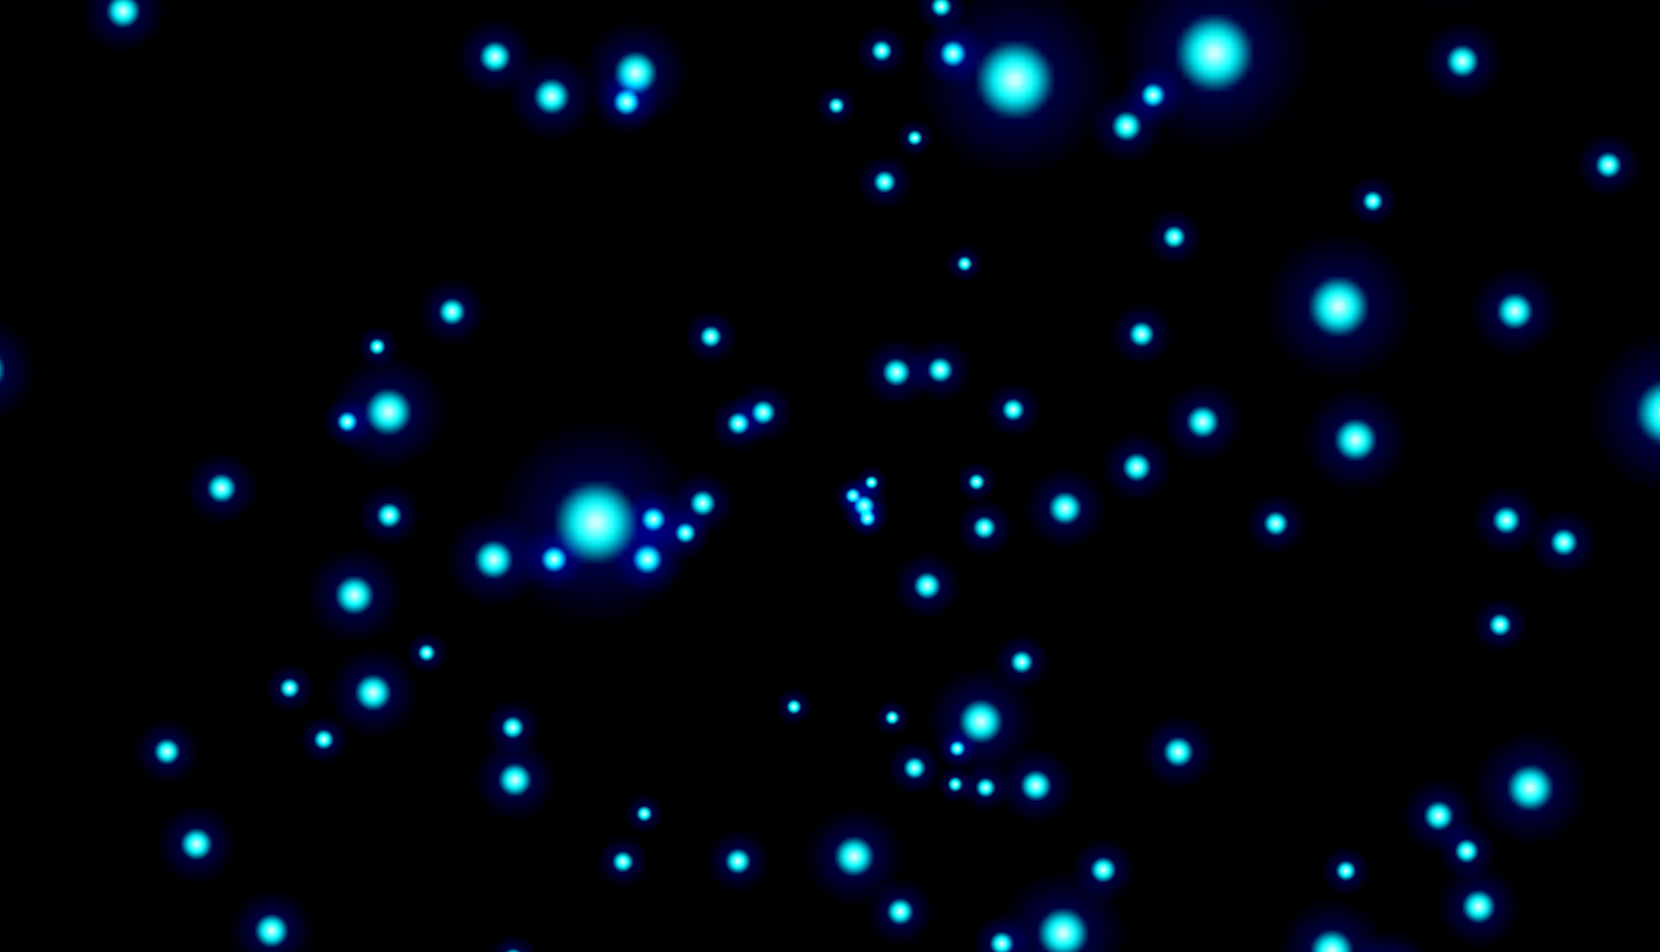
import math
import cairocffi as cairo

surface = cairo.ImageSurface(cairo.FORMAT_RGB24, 1660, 952)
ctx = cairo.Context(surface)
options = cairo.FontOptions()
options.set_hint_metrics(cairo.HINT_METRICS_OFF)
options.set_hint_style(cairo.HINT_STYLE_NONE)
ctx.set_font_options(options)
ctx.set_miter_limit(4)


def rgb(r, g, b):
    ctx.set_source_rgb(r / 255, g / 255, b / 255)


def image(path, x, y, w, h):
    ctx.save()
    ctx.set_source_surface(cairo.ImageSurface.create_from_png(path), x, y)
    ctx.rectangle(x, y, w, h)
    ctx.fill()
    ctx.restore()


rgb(255, 255, 255)
ctx.paint()
image('image0.png', 0, 0, 1660, 952)
surface.write_to_png('render.png')
